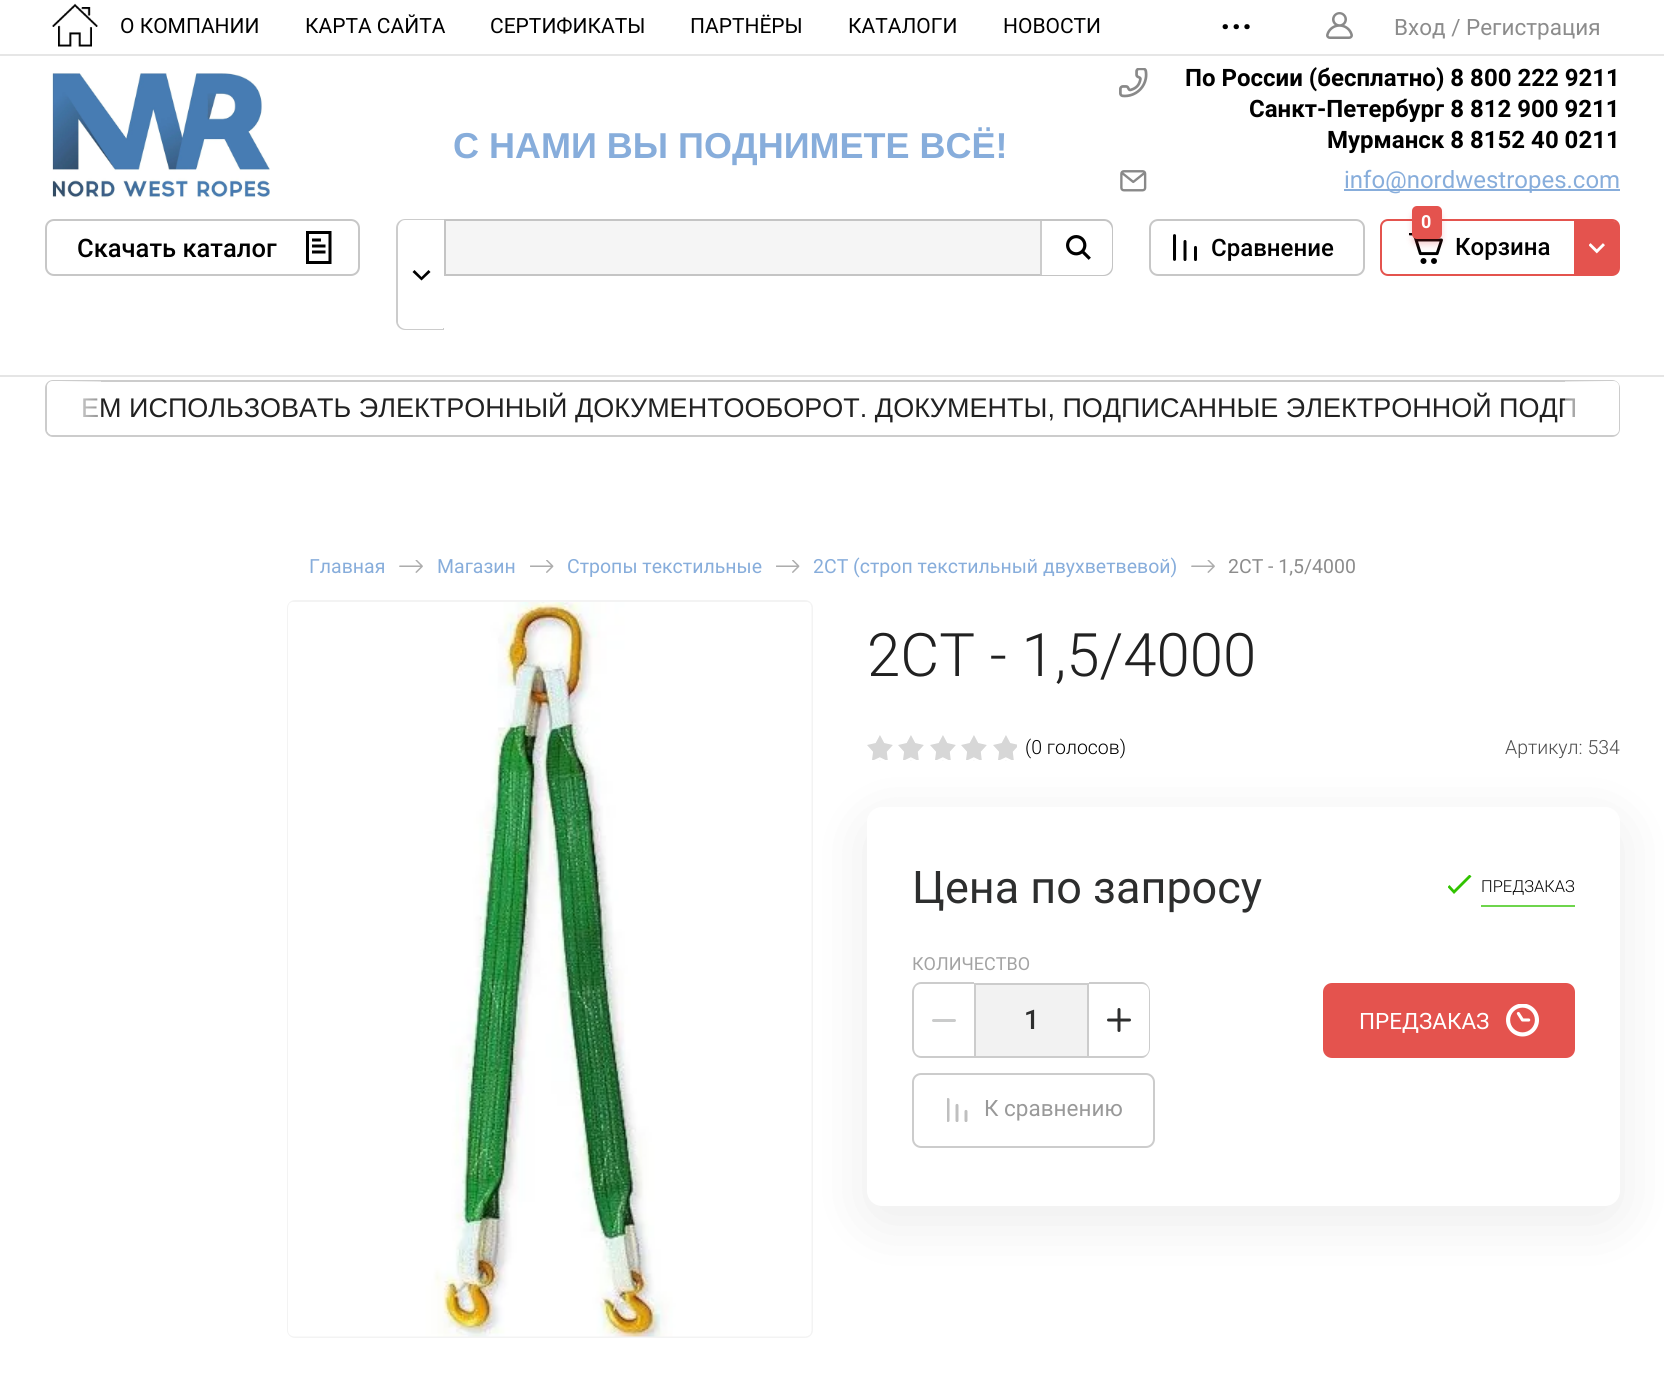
import math
import cairocffi as cairo

surface = cairo.ImageSurface(cairo.FORMAT_RGB24, 1664, 1387)
ctx = cairo.Context(surface)
options = cairo.FontOptions()
options.set_hint_metrics(cairo.HINT_METRICS_OFF)
options.set_hint_style(cairo.HINT_STYLE_NONE)
ctx.set_font_options(options)
ctx.set_miter_limit(4)


def rgb(r, g, b):
    ctx.set_source_rgb(r / 255, g / 255, b / 255)


def face(family, size, italic, bold):
    ctx.select_font_face(family, cairo.FONT_SLANT_ITALIC if italic else cairo.FONT_SLANT_NORMAL, cairo.FONT_WEIGHT_BOLD if bold else cairo.FONT_WEIGHT_NORMAL)
    ctx.set_font_size(size)


def label(x, y, s):
    ctx.move_to(x, y)
    ctx.show_text(s)


def rect(x, y, w, h):
    ctx.rectangle(x, y, w, h)
    ctx.fill()


def rrect(x, y, w, h, r):
    ctx.new_sub_path()
    for i, (u, v) in enumerate([(x + w - r, y + h - r), (x + r, y + h - r), (x + r, y + r), (x + w - r, y + r)]):
        ctx.arc(u, v, r, i * math.pi / 2, (i + 1) * math.pi / 2)
    ctx.close_path()


def soft_shadow(x, y, w, h, r, blur, alpha):
    ctx.push_group_with_content(cairo.CONTENT_ALPHA)
    ctx.set_operator(cairo.OPERATOR_SOURCE)
    for i in range(15, -16, -2):
        e = blur * i / 6
        if min(w, h) + 2 * e > 0:
            ctx.set_source_rgba(0, 0, 0, alpha * math.erfc((i - 1) / 8.5) / 2)
            rrect(x - e, y - e, w + 2 * e, h + 2 * e, max(0, min(r + e + blur * .6, min(w, h) / 2 + e)))
            ctx.fill()
    ctx.mask(ctx.pop_group())


def image(path, x, y, w, h):
    ctx.save()
    ctx.set_source_surface(cairo.ImageSurface.create_from_png(path), x, y)
    ctx.rectangle(x, y, w, h)
    ctx.fill()
    ctx.restore()


rgb(255, 255, 255)
ctx.paint()
rgb(230, 230, 230)
rect(0, 54, 1664, 2)
image('image0.png', 52, 3, 46, 44)
face('Roboto', 21, 0, 0)
rgb(0, 0, 0)
label(120, 33, 'О КОМПАНИИ')
label(305, 33, 'КАРТА САЙТА')
label(490, 33, 'СЕРТИФИКАТЫ')
label(690, 33, 'ПАРТНЁРЫ')
label(848, 33, 'КАТАЛОГИ')
label(1003, 33, 'НОВОСТИ')
face('Roboto Medium', 39, 0, 0)
label(1220, 29, '...')
image('image1.png', 1326, 12, 27, 27)
face('Roboto', 22.5, 0, 0)
rgb(140, 140, 140)
label(1394, 35, 'Вход / Регистрация')
image('image2.png', 52, 73, 218, 125)
face('Liberation Sans', 36, 0, 1)
rgb(135, 173, 219)
label(453, 158, 'С НАМИ ВЫ ПОДНИМЕТЕ ВСЁ!')
image('image3.png', 1119, 68, 29, 30)
face('Roboto', 24, 0, 1)
rgb(0, 0, 0)
label(1185, 86, 'По России (бесплатно) 8 800 222 9211')
label(1249, 117, 'Санкт-Петербург 8 812 900 9211')
label(1327, 148, 'Мурманск 8 8152 40 0211')
image('image4.png', 1120, 170, 27, 22)
rgb(135, 173, 219)
rect(1344, 189, 276, 2)
face('Roboto', 24, 0, 0)
label(1344, 188, 'info@nordwestropes.com')
rgb(229, 229, 229)
rect(0, 375, 1664, 2)
image('image5.png', 306, 231, 26, 33)
rrect(46, 220, 313, 55, 8)
rgb(199, 199, 199)
ctx.stroke()
face('Roboto Medium', 25.5, 0, 0)
rgb(0, 0, 0)
label(77, 257, 'Скачать каталог')
rgb(204, 204, 204)
ctx.set_fill_rule(cairo.FILL_RULE_EVEN_ODD)
ctx.new_path()
ctx.move_to(405, 219)
ctx.line_to(444, 219)
ctx.line_to(444, 330)
ctx.line_to(405, 330)
ctx.curve_to(400, 330, 396, 326, 396, 321)
ctx.line_to(396, 228)
ctx.curve_to(396, 223, 400, 219, 405, 219)
ctx.close_path()
ctx.move_to(405, 220)
ctx.line_to(444, 220)
ctx.line_to(444, 328)
ctx.line_to(405, 328)
ctx.curve_to(401, 328, 398, 325, 398, 321)
ctx.line_to(398, 228)
ctx.curve_to(398, 224, 401, 220, 405, 220)
ctx.close_path()
ctx.fill()
rgb(255, 255, 255)
ctx.new_path()
ctx.move_to(406, 221)
ctx.line_to(443, 221)
ctx.line_to(443, 329)
ctx.line_to(406, 329)
ctx.curve_to(401.5, 329, 398, 325.5, 398, 321)
ctx.line_to(398, 229)
ctx.curve_to(398, 224.5, 401.5, 221, 406, 221)
ctx.close_path()
ctx.fill()
rgb(0, 0, 0)
ctx.set_fill_rule(cairo.FILL_RULE_WINDING)
ctx.new_path()
ctx.move_to(412.5, 272)
ctx.line_to(421.5, 280.5)
ctx.line_to(430.5, 272)
ctx.line_to(428.5, 270)
ctx.line_to(421.5, 277)
ctx.line_to(414.5, 270)
ctx.close_path()
ctx.fill()
rgb(245, 245, 245)
ctx.new_path()
ctx.move_to(444, 219)
ctx.line_to(1104, 219)
ctx.curve_to(1109, 219, 1113, 223, 1113, 228)
ctx.line_to(1113, 267)
ctx.curve_to(1113, 272, 1109, 276, 1104, 276)
ctx.line_to(444, 276)
ctx.close_path()
ctx.fill()
ctx.new_path()
ctx.move_to(445, 220)
ctx.line_to(1104, 220)
ctx.curve_to(1108.5, 220, 1112, 223.5, 1112, 228)
ctx.line_to(1112, 267)
ctx.curve_to(1112, 271.5, 1108.5, 275, 1104, 275)
ctx.line_to(445, 275)
ctx.close_path()
ctx.set_source_rgba(0, 0, 0, 0.2)
ctx.stroke()
rgb(255, 255, 255)
ctx.new_path()
ctx.move_to(1040, 221)
ctx.line_to(1103, 221)
ctx.curve_to(1108, 221, 1112, 225, 1112, 230)
ctx.line_to(1112, 266)
ctx.curve_to(1112, 271, 1108, 275, 1103, 275)
ctx.line_to(1040, 275)
ctx.close_path()
ctx.fill()
image('image6.png', 1066, 235, 25, 25)
rgb(204, 204, 204)
rect(1040, 221, 2, 54)
image('image7.png', 1173, 234, 24, 27)
rrect(1150, 220, 214, 55, 8)
rgb(199, 199, 199)
ctx.stroke()
face('Roboto Medium', 24, 0, 0)
rgb(0, 0, 0)
label(1211, 256, 'Сравнение')
rrect(1381, 220, 238, 55, 7)
rgb(228, 83, 78)
ctx.stroke()
image('image8.png', 1409, 233, 34, 31)
rgb(210, 35, 42)
soft_shadow(1412, 212, 30, 33, 5, 3, 0.2)
rgb(228, 83, 78)
rrect(1412, 206, 30, 33, 5)
ctx.fill()
face('Roboto', 18, 0, 1)
rgb(255, 255, 255)
label(1421, 228, '0')
rgb(228, 83, 78)
ctx.new_path()
ctx.move_to(1574, 221)
ctx.line_to(1613, 221)
ctx.curve_to(1616.5, 221, 1619, 223.5, 1619, 227)
ctx.line_to(1619, 269)
ctx.curve_to(1619, 272.5, 1616.5, 275, 1613, 275)
ctx.line_to(1574, 275)
ctx.close_path()
ctx.fill()
face('Roboto Medium', 24, 0, 0)
rgb(0, 0, 0)
label(1455, 255, 'Корзина')
image('image9.png', 1589, 243, 16, 11)
rrect(46, 381, 1573, 55, 7)
rgb(204, 204, 204)
ctx.stroke()
face('Liberation Sans', 27, 0, 0)
rgb(33, 33, 33)
label(81, 417, 'ЕМ ИСПОЛЬЗОВАТЬ ЭЛЕКТРОННЫЙ ДОКУМЕНТООБОРОТ. ДОКУМЕНТЫ, ПОДПИСАННЫЕ ЭЛЕКТРОННОЙ ПОДП')
ctx.set_source_rgba(1, 1, 1, 0.5)
ctx.new_path()
ctx.move_to(53, 381)
ctx.line_to(101, 381)
ctx.line_to(101, 435)
ctx.line_to(53, 435)
ctx.curve_to(49.5, 435, 47, 432.5, 47, 429)
ctx.line_to(47, 387)
ctx.curve_to(47, 383.5, 49.5, 381, 53, 381)
ctx.close_path()
ctx.fill()
gradient = cairo.LinearGradient(59, 408, 101, 408)
gradient.add_color_stop_rgba(0, 1, 1, 1, 1)
gradient.add_color_stop_rgba(1, 1, 1, 1, 0)
ctx.set_source(gradient)
rect(59, 381, 39, 36)
rgb(255, 255, 255)
ctx.new_path()
ctx.move_to(53, 381)
ctx.line_to(59, 381)
ctx.line_to(59, 435)
ctx.line_to(53, 435)
ctx.curve_to(49.5, 435, 47, 432.5, 47, 429)
ctx.line_to(47, 387)
ctx.curve_to(47, 383.5, 49.5, 381, 53, 381)
ctx.close_path()
ctx.fill()
ctx.set_source_rgba(1, 1, 1, 0.5)
ctx.new_path()
ctx.move_to(1565, 381)
ctx.line_to(1613, 381)
ctx.curve_to(1616.5, 381, 1619, 383.5, 1619, 387)
ctx.line_to(1619, 429)
ctx.curve_to(1619, 432.5, 1616.5, 435, 1613, 435)
ctx.line_to(1565, 435)
ctx.close_path()
ctx.fill()
gradient = cairo.LinearGradient(1565, 408, 1607, 408)
gradient.add_color_stop_rgba(0, 1, 1, 1, 0)
gradient.add_color_stop_rgba(1, 1, 1, 1, 1)
ctx.set_source(gradient)
rect(1566, 381, 41, 36)
rgb(255, 255, 255)
ctx.new_path()
ctx.move_to(1607, 381)
ctx.line_to(1613, 381)
ctx.curve_to(1616.5, 381, 1619, 383.5, 1619, 387)
ctx.line_to(1619, 429)
ctx.curve_to(1619, 432.5, 1616.5, 435, 1613, 435)
ctx.line_to(1607, 435)
ctx.close_path()
ctx.fill()
face('Roboto', 19.5, 0, 0)
rgb(135, 173, 219)
label(309, 573, 'Главная')
image('image10.png', 399, 560, 24, 13)
label(437, 573, 'Магазин')
image('image11.png', 530, 560, 24, 13)
label(567, 573, 'Стропы текстильные')
image('image11.png', 776, 560, 24, 13)
label(813, 573, '2СТ (строп текстильный двухветвевой)')
image('image10.png', 1191, 560, 24, 13)
rgb(140, 140, 140)
label(1228, 573, '2СТ - 1,5/4000')
rgb(0, 0, 0)
soft_shadow(867, 822, 753, 399, 15, 30, 0.08)
rrect(288, 601, 524, 736, 7)
rgb(243, 243, 243)
ctx.stroke()
image('image12.png', 288, 602, 524, 735)
face('Roboto Light', 60, 0, 0)
rgb(33, 33, 33)
label(867, 676, '2СТ - 1,5/4000')
image('image13.png', 867, 735, 150, 26)
face('Roboto Light', 19.5, 0, 0)
rgb(0, 0, 0)
label(1025, 754, '(0 голосов)')
rgb(76, 76, 76)
label(1505, 754, 'Артикул: 534')
rgb(255, 255, 255)
rrect(867, 807, 753, 399, 15)
ctx.fill()
face('Roboto', 45, 0, 0)
rgb(45, 46, 46)
label(912, 903, 'Цена по запросу')
rgb(110, 213, 76)
rect(1481, 905, 94, 2)
ctx.save()
ctx.rectangle(1448, 875, 24, 19)
ctx.clip()
rgb(49, 195, 0)
ctx.set_fill_rule(cairo.FILL_RULE_EVEN_ODD)
ctx.new_path()
ctx.move_to(1471.5, 876.5)
ctx.line_to(1454, 894)
ctx.line_to(1447.5, 887)
ctx.line_to(1449.5, 885)
ctx.line_to(1454, 890)
ctx.line_to(1469.5, 874.5)
ctx.close_path()
ctx.fill()
ctx.restore()
face('Roboto Light', 16.5, 0, 0)
rgb(0, 0, 0)
label(1481, 892, 'ПРЕДЗАКАЗ')
face('Roboto', 18, 0, 0)
rgb(163, 163, 163)
label(912, 970, 'КОЛИЧЕСТВО')
rgb(204, 204, 204)
ctx.set_fill_rule(cairo.FILL_RULE_EVEN_ODD)
ctx.new_path()
ctx.move_to(921, 982)
ctx.line_to(974, 982)
ctx.line_to(974, 1058)
ctx.line_to(921, 1058)
ctx.curve_to(916, 1058, 912, 1053, 912, 1048)
ctx.line_to(912, 992)
ctx.curve_to(912, 987, 916, 982, 921, 982)
ctx.close_path()
ctx.move_to(921, 984)
ctx.line_to(974, 984)
ctx.line_to(974, 1056)
ctx.line_to(921, 1056)
ctx.curve_to(917, 1056, 914, 1053, 914, 1048)
ctx.line_to(914, 992)
ctx.curve_to(914, 987, 917, 984, 921, 984)
ctx.close_path()
ctx.fill()
rgb(202, 203, 203)
rrect(932, 1019, 24, 3, 1.5)
ctx.fill()
rgb(242, 242, 242)
ctx.rectangle(975, 984, 113, 73)
ctx.fill_preserve()
rgb(204, 204, 204)
ctx.stroke()
face('Roboto Medium', 27, 0, 0)
rgb(45, 46, 46)
label(1024, 1029, '1')
rgb(204, 204, 204)
ctx.new_path()
ctx.move_to(1089, 982)
ctx.line_to(1142, 982)
ctx.curve_to(1146, 982, 1150, 987, 1150, 992)
ctx.line_to(1150, 1048)
ctx.curve_to(1150, 1053, 1146, 1058, 1142, 1058)
ctx.line_to(1089, 1058)
ctx.close_path()
ctx.move_to(1089, 984)
ctx.line_to(1142, 984)
ctx.curve_to(1146, 984, 1149, 987, 1149, 992)
ctx.line_to(1149, 1048)
ctx.curve_to(1149, 1053, 1146, 1056, 1142, 1056)
ctx.line_to(1089, 1056)
ctx.close_path()
ctx.fill()
image('image14.png', 1107, 1008, 24, 24)
rgb(228, 83, 78)
rrect(1324, 984, 250, 73, 8)
ctx.fill_preserve()
ctx.stroke()
face('Roboto', 22.5, 0, 0)
rgb(255, 255, 255)
label(1359, 1029, 'ПРЕДЗАКАЗ')
image('image15.png', 1506, 1004, 33, 33)
rrect(913, 1074, 241, 73, 8)
rgb(204, 204, 204)
ctx.stroke()
image('image16.png', 947, 1098, 21, 24)
rgb(153, 153, 153)
label(984, 1116, 'К сравнению')
surface.write_to_png('render.png')
